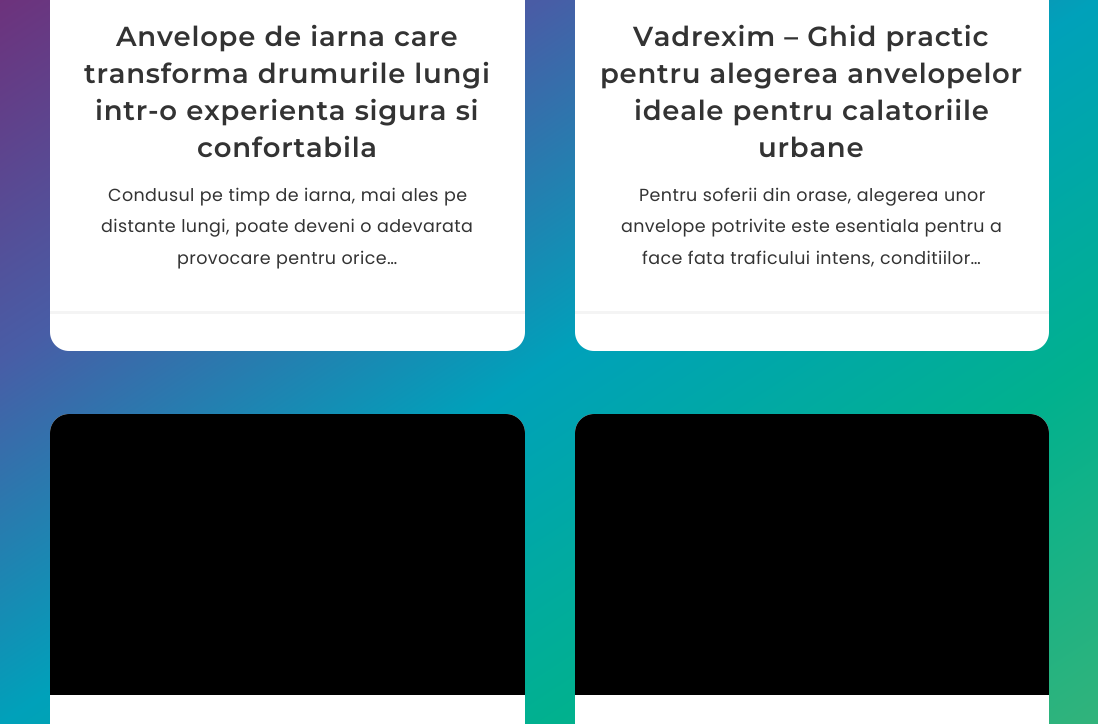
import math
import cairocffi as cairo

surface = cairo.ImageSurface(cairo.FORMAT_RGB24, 1098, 724)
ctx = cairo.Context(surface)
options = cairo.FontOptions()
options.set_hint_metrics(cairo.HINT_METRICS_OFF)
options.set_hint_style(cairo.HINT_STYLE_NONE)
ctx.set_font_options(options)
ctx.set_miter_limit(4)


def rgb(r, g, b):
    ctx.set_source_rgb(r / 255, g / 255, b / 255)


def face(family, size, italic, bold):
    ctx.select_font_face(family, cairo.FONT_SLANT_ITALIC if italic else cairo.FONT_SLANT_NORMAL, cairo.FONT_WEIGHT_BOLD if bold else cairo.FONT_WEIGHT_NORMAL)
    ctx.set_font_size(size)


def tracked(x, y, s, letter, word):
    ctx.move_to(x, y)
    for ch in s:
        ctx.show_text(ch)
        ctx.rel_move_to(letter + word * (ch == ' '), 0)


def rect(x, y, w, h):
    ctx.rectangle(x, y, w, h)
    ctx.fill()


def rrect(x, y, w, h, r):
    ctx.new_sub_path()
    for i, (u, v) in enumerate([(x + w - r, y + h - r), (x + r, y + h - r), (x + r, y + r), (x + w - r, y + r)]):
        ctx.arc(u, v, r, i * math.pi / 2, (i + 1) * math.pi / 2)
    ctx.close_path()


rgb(255, 255, 255)
ctx.paint()
gradient = cairo.LinearGradient(216, -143, 883, 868)
gradient.add_color_stop_rgba(0, 0.427, 0.196, 0.486, 1)
gradient.add_color_stop_rgba(0.25, 0.282, 0.365, 0.651, 1)
gradient.add_color_stop_rgba(0.5, 0, 0.631, 0.729, 1)
gradient.add_color_stop_rgba(0.75, 0.004, 0.694, 0.557, 1)
gradient.add_color_stop_rgba(1, 0.196, 0.702, 0.482, 1)
ctx.set_source(gradient)
rect(0, 0, 1098, 724)
rgb(255, 255, 255)
rrect(50, -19, 475, 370, 19)
ctx.fill()
face('Montserrat Thin', 27.5, 0, 0)
rgb(51, 51, 51)
tracked(116, 46, 'Anvelope de iarna care', 0.75, 0)
tracked(84, 83, 'transforma drumurile lungi', 0.75, 0)
tracked(95, 120, 'intr-o experienta sigura si', 0.75, 0)
tracked(197, 157, 'confortabila', 0.75, 0)
face('Poppins', 17.5, 0, 0)
tracked(108, 201, 'Condusul pe timp de iarna, mai ales pe', 0.4, 0)
tracked(101, 232, 'distante lungi, poate deveni o adevarata', 0.4, 0)
tracked(177, 264, 'provocare pentru orice…', 0.4, 0)
rgb(244, 244, 244)
rect(50, 311, 475, 3)
rgb(255, 255, 255)
rrect(575, -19, 474, 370, 19)
ctx.fill()
face('Montserrat Thin', 27.5, 0, 0)
rgb(51, 51, 51)
tracked(633, 46, 'Vadrexim – Ghid practic', 0.75, 0)
tracked(600, 83, 'pentru alegerea anvelopelor', 0.75, 0)
tracked(634, 120, 'ideale pentru calatoriile', 0.75, 0)
tracked(758, 157, 'urbane', 0.75, 0)
face('Poppins', 17.5, 0, 0)
tracked(639, 201, 'Pentru soferii din orase, alegerea unor', 0.4, 0)
tracked(621, 232, 'anvelope potrivite este esentiala pentru a', 0.4, 0)
tracked(642, 264, 'face fata traficului intens, conditiilor…', 0.4, 0)
rgb(244, 244, 244)
rect(575, 311, 474, 3)
rgb(255, 255, 255)
rrect(50, 414, 475, 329, 19)
ctx.fill()
rgb(0, 0, 0)
ctx.new_path()
ctx.move_to(69, 414)
ctx.line_to(506, 414)
ctx.curve_to(516.5, 414, 525, 422.5, 525, 433)
ctx.line_to(525, 695)
ctx.line_to(50, 695)
ctx.line_to(50, 433)
ctx.curve_to(50, 422.5, 58.5, 414, 69, 414)
ctx.close_path()
ctx.fill()
rgb(255, 255, 255)
rrect(575, 414, 474, 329, 19)
ctx.fill()
rgb(0, 0, 0)
ctx.new_path()
ctx.move_to(594, 414)
ctx.line_to(1030, 414)
ctx.curve_to(1040.5, 414, 1049, 422.5, 1049, 433)
ctx.line_to(1049, 695)
ctx.line_to(575, 695)
ctx.line_to(575, 433)
ctx.curve_to(575, 422.5, 583.5, 414, 594, 414)
ctx.close_path()
ctx.fill()
surface.write_to_png('render.png')
